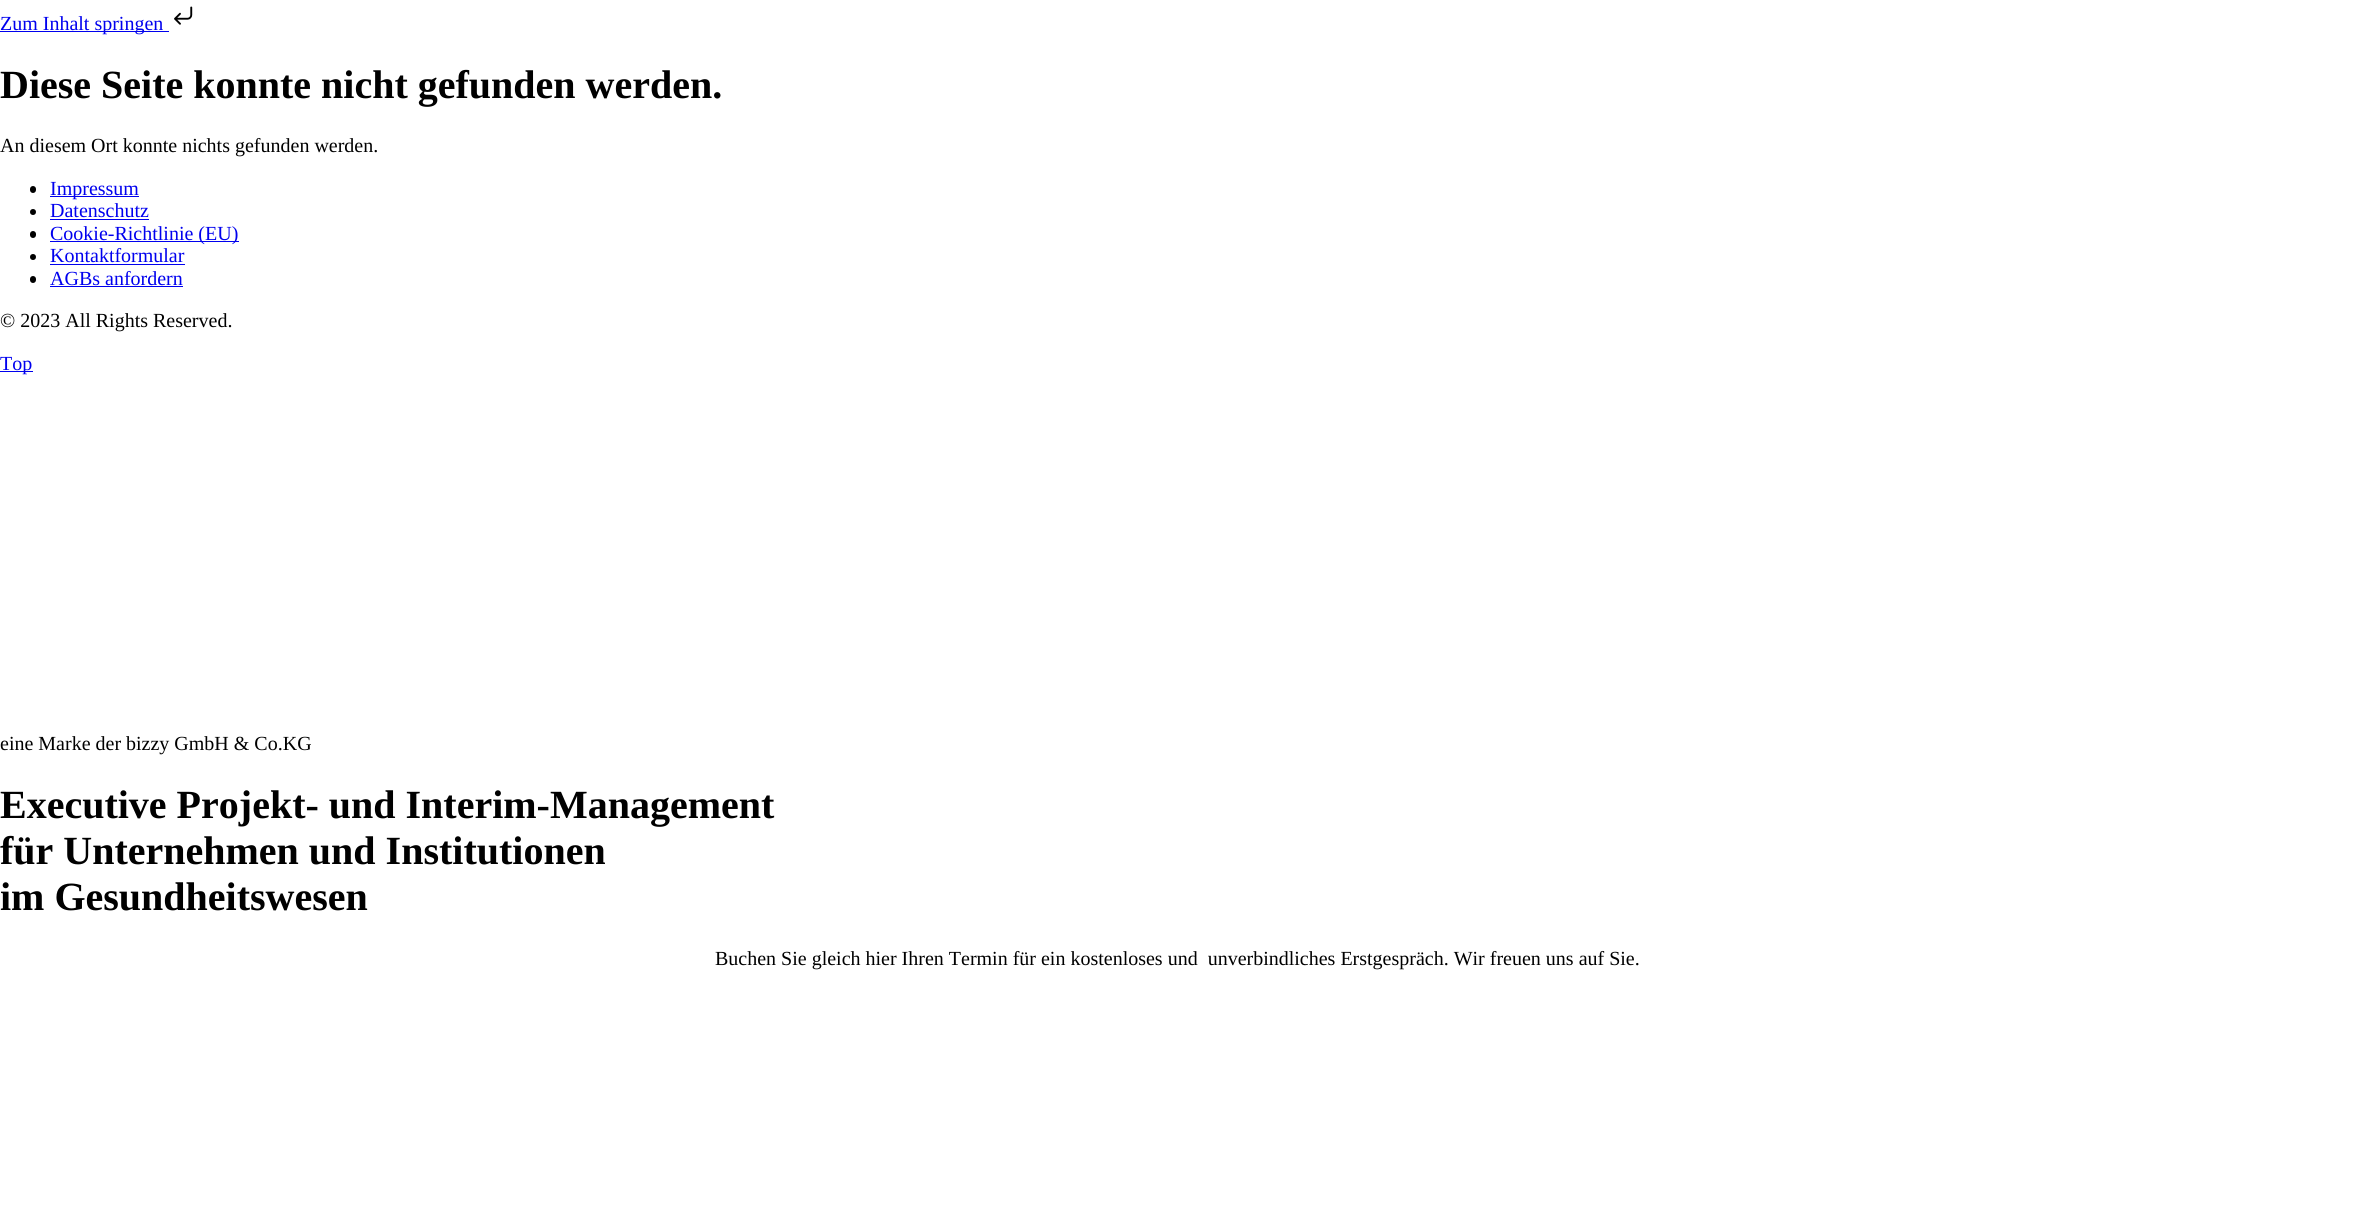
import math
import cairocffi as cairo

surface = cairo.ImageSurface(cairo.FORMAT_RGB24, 2355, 1226)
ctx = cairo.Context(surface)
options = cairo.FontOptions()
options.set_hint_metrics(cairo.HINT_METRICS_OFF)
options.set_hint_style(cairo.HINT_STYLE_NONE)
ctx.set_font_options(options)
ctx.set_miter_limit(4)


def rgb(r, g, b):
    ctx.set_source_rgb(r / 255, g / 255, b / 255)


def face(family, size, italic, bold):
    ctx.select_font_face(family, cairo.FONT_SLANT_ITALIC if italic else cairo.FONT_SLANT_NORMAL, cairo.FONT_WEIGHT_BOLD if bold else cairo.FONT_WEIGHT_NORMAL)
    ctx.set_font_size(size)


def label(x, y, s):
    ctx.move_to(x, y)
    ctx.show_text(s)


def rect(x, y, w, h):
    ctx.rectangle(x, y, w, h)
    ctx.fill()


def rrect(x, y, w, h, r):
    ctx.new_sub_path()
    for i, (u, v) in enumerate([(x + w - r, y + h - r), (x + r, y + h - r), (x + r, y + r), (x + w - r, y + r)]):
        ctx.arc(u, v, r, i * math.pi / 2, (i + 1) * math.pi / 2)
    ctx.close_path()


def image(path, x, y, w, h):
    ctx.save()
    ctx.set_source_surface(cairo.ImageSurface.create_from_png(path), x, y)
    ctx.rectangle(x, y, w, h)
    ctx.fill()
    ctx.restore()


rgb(255, 255, 255)
ctx.paint()
rgb(0, 0, 238)
rect(0, 31, 169, 1)
face('Liberation Serif', 20, 0, 0)
label(0, 30, 'Zum Inhalt springen')
image('image0.png', 174, 6, 19, 19)
face('Liberation Serif', 40, 0, 1)
rgb(0, 0, 0)
label(0, 98, 'Diese Seite konnte nicht gefunden werden.')
face('Liberation Serif', 20, 0, 0)
label(0, 152, 'An diesem Ort konnte nichts gefunden werden.')
rrect(30, 186, 6, 7, 3)
ctx.fill()
rgb(0, 0, 238)
rect(50, 196, 89, 1)
label(50, 195, 'Impressum')
rgb(0, 0, 0)
ctx.new_path()
ctx.arc(33, 212, 3, 0, 2 * math.pi)
ctx.fill()
rgb(0, 0, 238)
label(50, 217, 'Datenschutz')
rect(50, 219, 99, 1)
rgb(0, 0, 0)
rrect(30, 231, 6, 7, 3)
ctx.fill()
rgb(0, 0, 238)
rect(50, 241, 189, 1)
label(50, 240, 'Cookie-Richtlinie (EU)')
rgb(0, 0, 0)
ctx.new_path()
ctx.arc(33, 257, 3, 0, 2 * math.pi)
ctx.fill()
rgb(0, 0, 238)
label(50, 262, 'Kontaktformular')
rect(50, 264, 135, 1)
rgb(0, 0, 0)
rrect(30, 276, 6, 7, 3)
ctx.fill()
rgb(0, 0, 238)
label(50, 285, 'AGBs anfordern')
rect(50, 286, 133, 1)
rgb(0, 0, 0)
label(0, 327, '© 2023 All Rights Reserved.')
rgb(0, 0, 238)
rect(0, 371, 33, 1)
label(0, 370, 'Top')
rgb(0, 0, 0)
label(0, 750, 'eine Marke der bizzy GmbH & Co.KG')
face('Liberation Serif', 40, 0, 1)
label(0, 818, 'Executive Projekt- und Interim-Management')
label(0, 864, 'für Unternehmen und Institutionen')
label(0, 910, 'im Gesundheitswesen')
face('Liberation Serif', 20, 0, 0)
label(715, 965, 'Buchen Sie gleich hier Ihren Termin für ein kostenloses und  unverbindliches Erstgespräch. Wir freuen uns auf Sie.')
surface.write_to_png('render.png')
